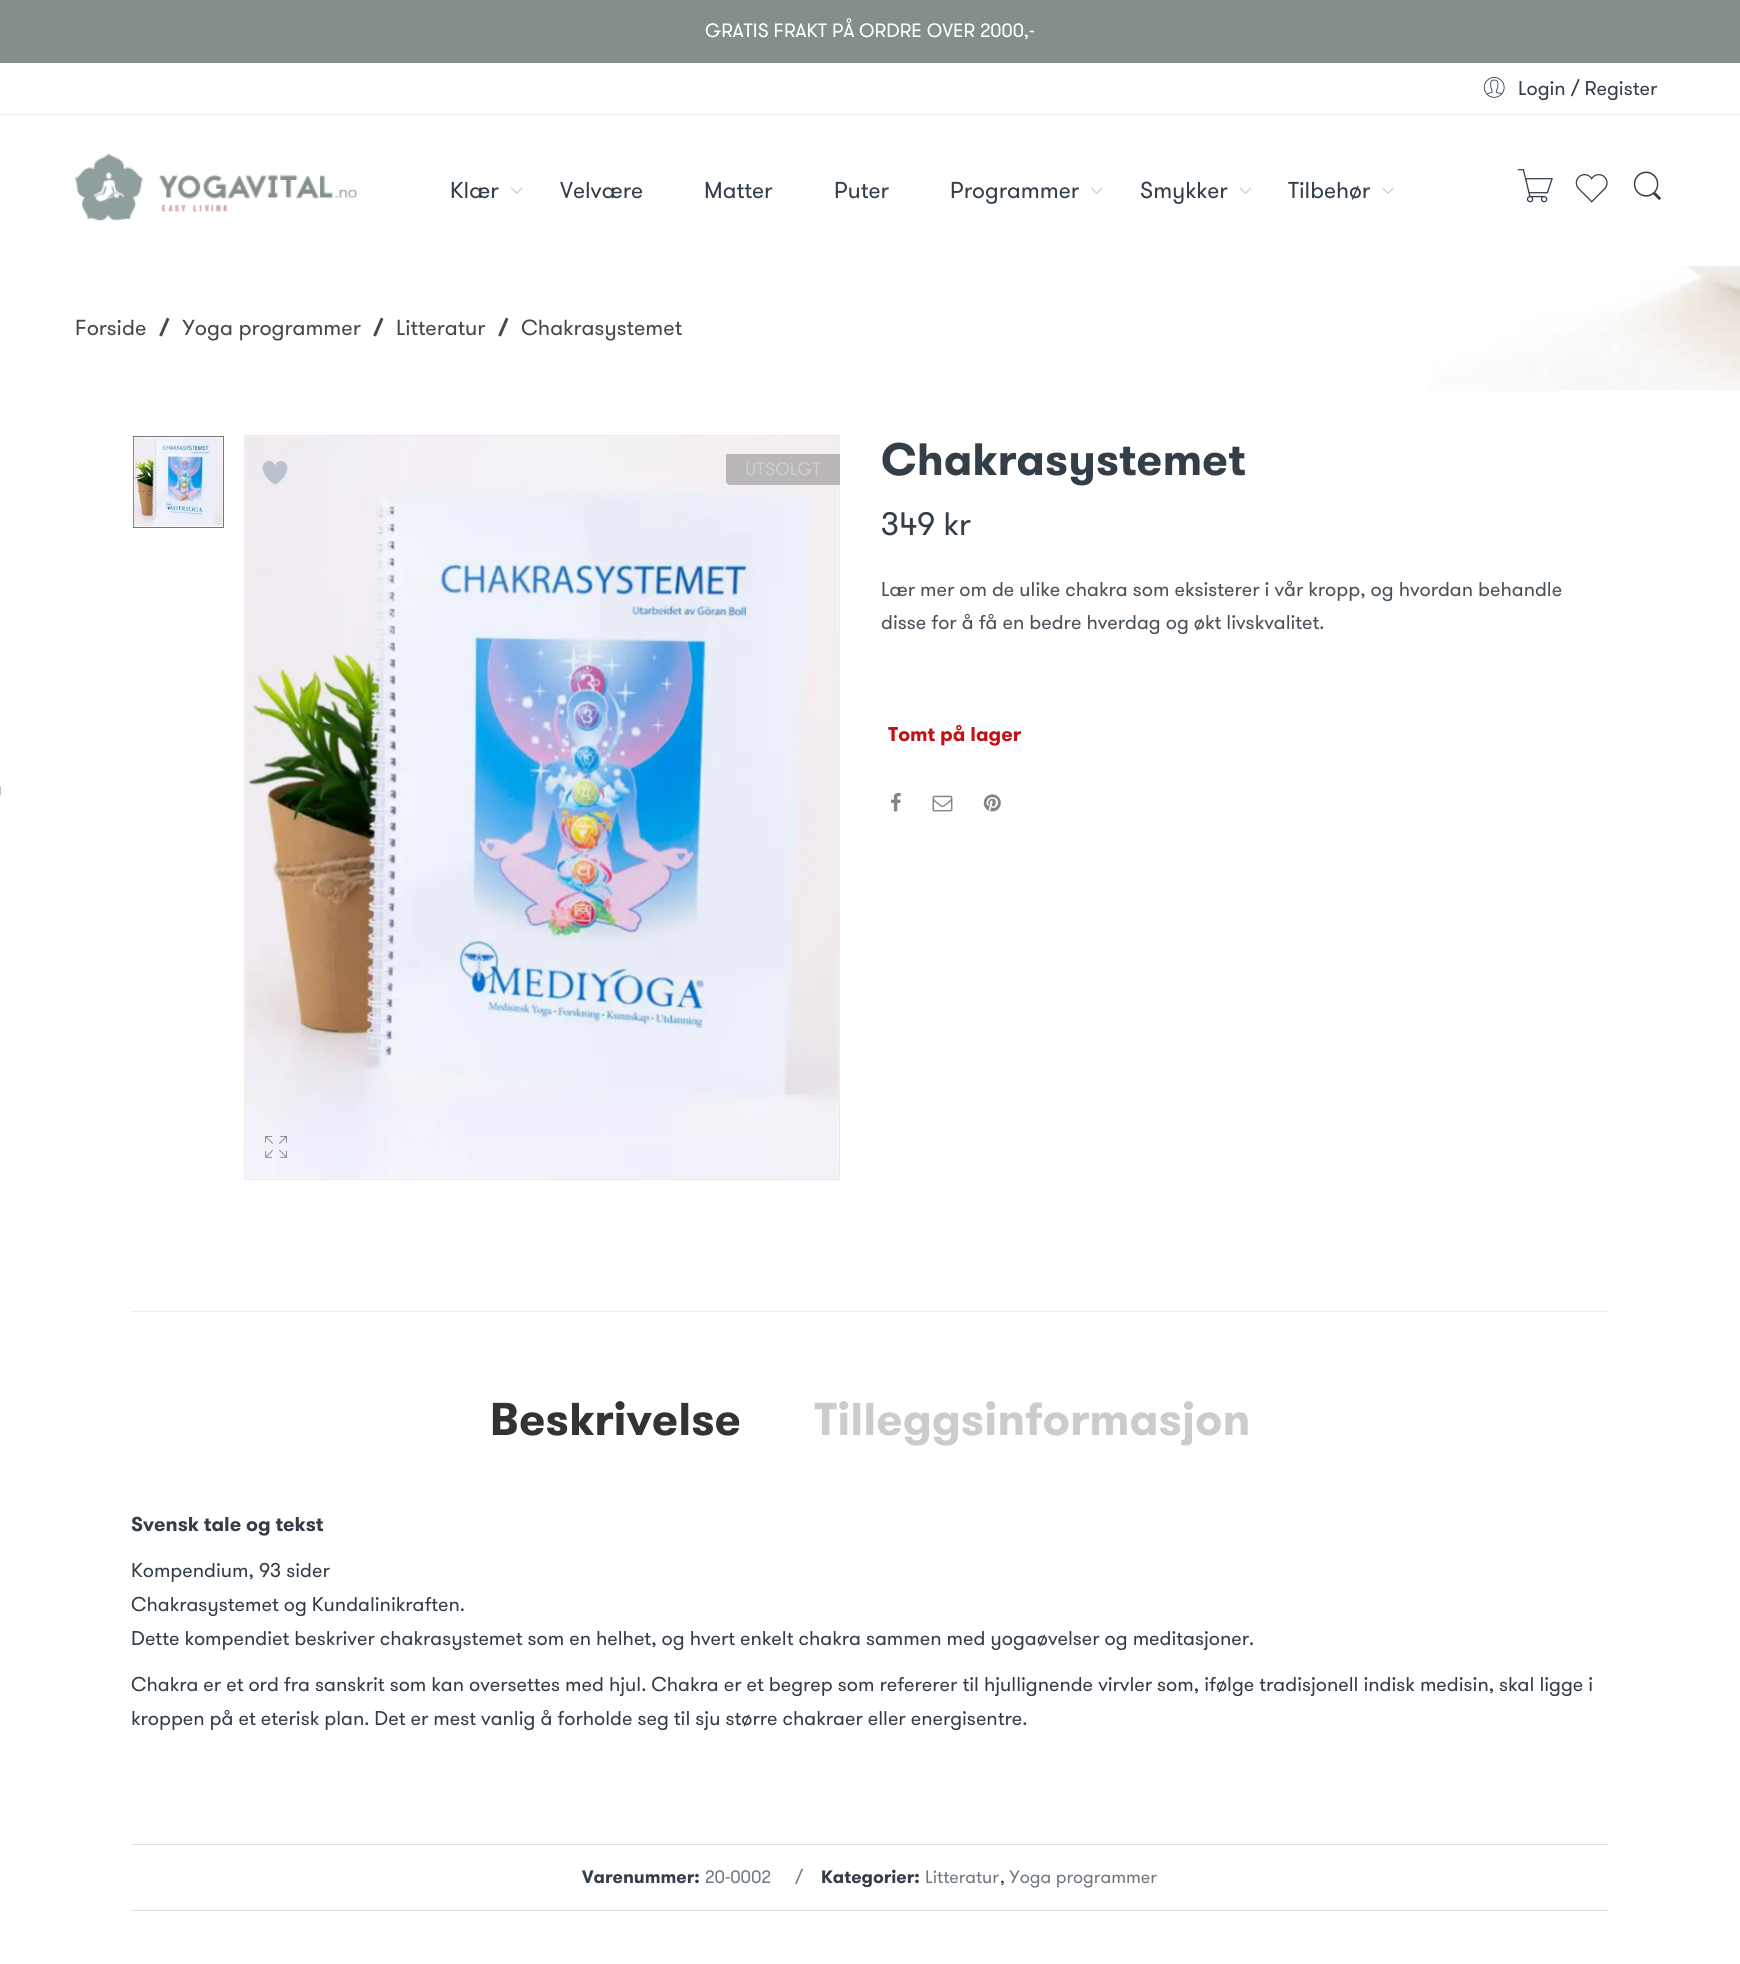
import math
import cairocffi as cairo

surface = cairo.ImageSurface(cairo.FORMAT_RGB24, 1740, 1964)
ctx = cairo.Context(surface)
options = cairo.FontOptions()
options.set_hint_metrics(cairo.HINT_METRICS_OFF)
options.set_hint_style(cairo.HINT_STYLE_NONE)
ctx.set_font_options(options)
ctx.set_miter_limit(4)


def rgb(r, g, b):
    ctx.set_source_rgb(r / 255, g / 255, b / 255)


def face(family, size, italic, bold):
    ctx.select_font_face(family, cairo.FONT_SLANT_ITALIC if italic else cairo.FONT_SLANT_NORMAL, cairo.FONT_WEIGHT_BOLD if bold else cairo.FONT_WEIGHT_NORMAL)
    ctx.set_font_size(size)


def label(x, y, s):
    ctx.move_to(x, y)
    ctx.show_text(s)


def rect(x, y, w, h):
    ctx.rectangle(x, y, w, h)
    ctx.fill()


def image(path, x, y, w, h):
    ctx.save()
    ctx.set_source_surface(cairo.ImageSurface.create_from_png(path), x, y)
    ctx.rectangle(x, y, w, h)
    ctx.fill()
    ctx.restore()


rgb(255, 255, 255)
ctx.paint()
rgb(131, 142, 141)
rect(0, 0, 1740, 63)
face('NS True', 19.3, 0, 0)
rgb(255, 255, 255)
label(705, 37, 'GRATIS FRAKT PÅ ORDRE OVER 2000,-')
rgb(236, 236, 236)
rect(0, 114, 1740, 1)
image('image0.png', 1483, 77, 22, 21)
face('NS True', 19.95, 0, 0)
rgb(51, 62, 72)
label(1518, 95, 'Login / Register')
image('image1.png', 75, 153, 283, 68)
face('NS True', 23, 0, 0)
label(450, 198, 'Klær')
image('image2.png', 511, 187, 12, 7)
label(560, 198, 'Velvære')
label(704, 198, 'Matter')
label(834, 198, 'Puter')
label(950, 198, 'Programmer')
image('image2.png', 1091, 187, 12, 7)
label(1140, 198, 'Smykker')
image('image3.png', 1239, 187, 12, 7)
label(1288, 198, 'Tilbehør')
image('image4.png', 1382, 187, 12, 7)
image('image5.png', 1517, 169, 36, 34)
image('image6.png', 1575, 174, 33, 29)
image('image7.png', 1633, 171, 29, 30)
image('image8.png', 1430, 266, 310, 125)
face('NS True', 21.75, 0, 0)
rgb(71, 71, 71)
label(75, 335, 'Forside')
face('NS True', 21.75, 0, 1)
label(159, 335, '/')
face('NS True', 21.75, 0, 0)
label(182, 335, 'Yoga programmer')
face('NS True', 21.75, 0, 1)
label(373, 335, '/')
face('NS True', 21.75, 0, 0)
label(396, 335, 'Litteratur')
face('NS True', 21.75, 0, 1)
label(498, 335, '/')
face('NS True', 21.75, 0, 0)
label(521, 335, 'Chakrasystemet')
rgb(194, 194, 194)
ctx.new_path()
ctx.move_to(0, 786)
ctx.curve_to(0.5, 786, 1, 786.5, 1, 787)
ctx.line_to(1, 794)
ctx.curve_to(1, 794.5, 0.5, 795, 0, 795)
ctx.close_path()
ctx.fill()
ctx.arc(0.5, 786.5, 0.5, 0, 2 * math.pi)
ctx.fill()
rect(0, 788, 1, 7)
ctx.rectangle(133.5, 436.5, 90, 91)
rgb(119, 119, 119)
ctx.set_line_width(1)
ctx.stroke()
image('image9.png', 133, 437, 90, 89)
ctx.rectangle(244.5, 435.5, 595, 744)
rgb(234, 234, 234)
ctx.stroke()
image('image10.png', 244, 436, 595, 743)
image('image11.png', 262, 460, 26, 25)
image('image12.png', 265, 1136, 22, 22)
ctx.set_source_rgba(0.2, 0.2, 0.2, 0.3)
ctx.new_path()
ctx.move_to(726, 454)
ctx.line_to(840, 454)
ctx.line_to(840, 485)
ctx.line_to(730, 485)
ctx.curve_to(728, 485, 726, 483, 726, 481)
ctx.close_path()
ctx.fill()
face('NS True', 18, 0, 0)
rgb(204, 204, 204)
label(745, 475, 'UTSOLGT')
face('NS True', 45.25, 0, 1)
rgb(51, 62, 72)
label(881, 475, 'Chakrasystemet')
face('NS True', 32.5, 0, 0)
label(881, 535, '349 kr')
face('NS True', 19.95, 0, 0)
rgb(71, 81, 90)
label(881, 596, 'Lær mer om de ulike chakra som eksisterer i vår kropp, og hvordan behandle')
label(881, 629, 'disse for å få en bedre hverdag og økt livskvalitet.')
face('NS True', 19.95, 0, 1)
rgb(198, 15, 19)
label(888, 741, 'Tomt på lager')
image('image13.png', 891, 792, 10, 20)
image('image14.png', 932, 795, 21, 17)
image('image15.png', 983, 794, 18, 18)
rgb(239, 239, 239)
rect(131, 1311, 1478, 1)
face('NS True', 45.9, 0, 1)
rgb(51, 51, 51)
label(490, 1435, 'Beskrivelse')
rgb(204, 204, 204)
label(814, 1435, 'Tilleggsinformasjon')
face('NS True', 19.95, 0, 1)
rgb(51, 62, 72)
label(131, 1531, 'Svensk tale og tekst')
face('NS True', 19.95, 0, 0)
label(131, 1577, 'Kompendium, 93 sider')
label(131, 1611, 'Chakrasystemet og Kundalinikraften.')
label(131, 1645, 'Dette kompendiet beskriver chakrasystemet som en helhet, og hvert enkelt chakra sammen med yogaøvelser og meditasjoner.')
label(131, 1691, 'Chakra er et ord fra sanskrit som kan oversettes med hjul. Chakra er et begrep som refererer til hjullignende virvler som, ifølge tradisjonell indisk medisin, skal ligge i')
label(131, 1725, 'kroppen på et eterisk plan. Det er mest vanlig å forholde seg til sju større chakraer eller energisentre.')
rgb(225, 225, 225)
rect(131, 1844, 1478, 1)
rect(131, 1910, 1478, 1)
face('NS True', 18, 0, 1)
rgb(51, 62, 72)
label(582, 1883, 'Varenummer:')
face('NS True', 18, 0, 0)
rgb(112, 120, 127)
label(705, 1883, '20-0002')
label(795, 1883, '/')
face('NS True', 18, 0, 1)
rgb(51, 62, 72)
label(821, 1883, 'Kategorier:')
face('NS True', 18, 0, 0)
rgb(112, 120, 127)
label(925, 1883, 'Litteratur')
rgb(51, 62, 72)
label(1000, 1883, ',')
rgb(112, 120, 127)
label(1009, 1883, 'Yoga programmer')
surface.write_to_png('render.png')
